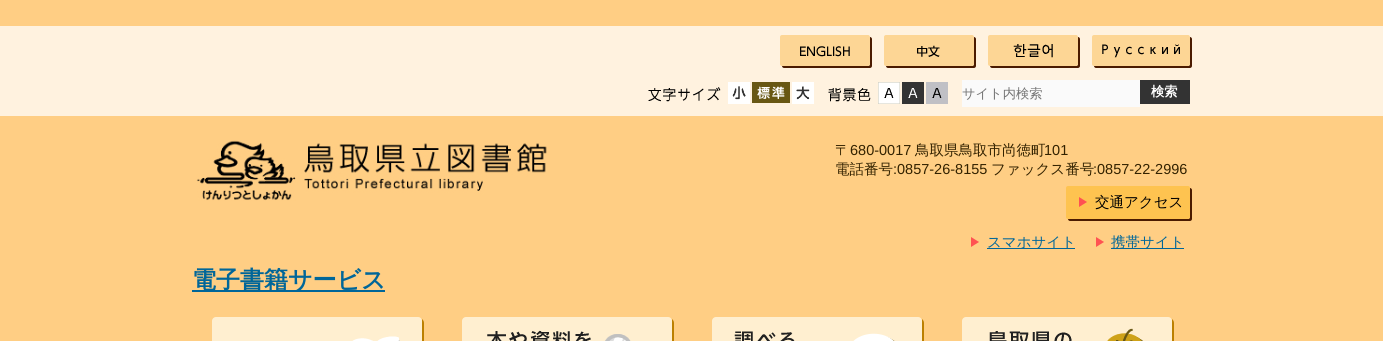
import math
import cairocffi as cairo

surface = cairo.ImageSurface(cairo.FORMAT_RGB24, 1383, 341)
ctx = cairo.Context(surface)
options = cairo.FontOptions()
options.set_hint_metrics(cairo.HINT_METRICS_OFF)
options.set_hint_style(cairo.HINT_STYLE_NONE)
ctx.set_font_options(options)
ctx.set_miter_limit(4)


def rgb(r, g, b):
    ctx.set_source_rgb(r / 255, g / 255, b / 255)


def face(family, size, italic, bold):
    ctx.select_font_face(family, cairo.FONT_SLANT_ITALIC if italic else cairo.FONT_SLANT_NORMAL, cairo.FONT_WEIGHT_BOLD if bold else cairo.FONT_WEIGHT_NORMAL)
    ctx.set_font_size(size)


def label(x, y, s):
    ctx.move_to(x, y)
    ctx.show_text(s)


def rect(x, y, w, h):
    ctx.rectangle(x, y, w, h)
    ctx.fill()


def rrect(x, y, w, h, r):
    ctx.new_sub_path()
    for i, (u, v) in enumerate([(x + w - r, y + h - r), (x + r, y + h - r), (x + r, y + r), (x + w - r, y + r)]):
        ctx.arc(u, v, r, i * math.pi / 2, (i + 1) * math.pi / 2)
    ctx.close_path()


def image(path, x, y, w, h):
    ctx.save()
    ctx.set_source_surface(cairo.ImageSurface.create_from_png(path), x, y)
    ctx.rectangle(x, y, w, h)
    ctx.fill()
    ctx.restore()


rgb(255, 206, 132)
ctx.paint()
rgb(255, 242, 223)
rect(0, 26, 1383, 90)
rgb(75, 27, 0)
ctx.new_path()
ctx.move_to(782, 66)
ctx.curve_to(782, 67, 783, 68, 784, 68)
ctx.line_to(870, 68)
ctx.curve_to(871, 68, 872, 67, 872, 66)
ctx.line_to(872, 39)
ctx.curve_to(872, 38, 871, 37, 870, 37)
ctx.line_to(870, 64)
ctx.curve_to(870, 65, 869, 66, 868, 66)
ctx.close_path()
ctx.fill()
rgb(253, 214, 149)
rrect(780, 35, 90, 31, 2)
ctx.fill()
image('image0.png', 800, 46, 50, 11)
rgb(75, 27, 0)
ctx.new_path()
ctx.move_to(886, 66)
ctx.curve_to(886, 67, 887, 68, 888, 68)
ctx.line_to(974, 68)
ctx.curve_to(975, 68, 976, 67, 976, 66)
ctx.line_to(976, 39)
ctx.curve_to(976, 38, 975, 37, 974, 37)
ctx.line_to(974, 64)
ctx.curve_to(974, 65, 973, 66, 972, 66)
ctx.close_path()
ctx.fill()
rgb(253, 214, 149)
rrect(884, 35, 90, 31, 2)
ctx.fill()
image('image1.png', 917, 45, 23, 12)
rgb(75, 27, 0)
ctx.new_path()
ctx.move_to(990, 66)
ctx.curve_to(990, 67, 991, 68, 992, 68)
ctx.line_to(1078, 68)
ctx.curve_to(1079, 68, 1080, 67, 1080, 66)
ctx.line_to(1080, 39)
ctx.curve_to(1080, 38, 1079, 37, 1078, 37)
ctx.line_to(1078, 64)
ctx.curve_to(1078, 65, 1077, 66, 1076, 66)
ctx.close_path()
ctx.fill()
rgb(253, 214, 149)
rrect(988, 35, 90, 31, 2)
ctx.fill()
image('image2.png', 1013, 44, 40, 14)
rgb(75, 27, 0)
ctx.new_path()
ctx.move_to(1094, 66)
ctx.curve_to(1094, 67, 1095, 68, 1096, 68)
ctx.line_to(1190, 68)
ctx.curve_to(1191, 68, 1192, 67, 1192, 66)
ctx.line_to(1192, 39)
ctx.curve_to(1192, 38, 1191, 37, 1190, 37)
ctx.line_to(1190, 64)
ctx.curve_to(1190, 65, 1189, 66, 1188, 66)
ctx.close_path()
ctx.fill()
rgb(253, 214, 149)
rrect(1092, 35, 98, 31, 2)
ctx.fill()
image('image3.png', 1102, 44, 78, 14)
image('image4.png', 648, 87, 73, 15)
image('image5.png', 728, 82, 22, 22)
image('image6.png', 752, 82, 38, 21)
image('image7.png', 792, 82, 22, 22)
image('image8.png', 828, 88, 43, 14)
image('image9.png', 878, 82, 22, 22)
image('image10.png', 902, 82, 22, 22)
image('image11.png', 926, 82, 22, 22)
rgb(250, 250, 250)
rect(962, 80, 178, 27)
face('WenQuanYi Zen Hei Medium', 13.25, 0, 0)
rgb(117, 117, 117)
label(962, 98, 'サイト内検索')
rgb(51, 51, 51)
rect(1140, 80, 50, 24)
face('WenQuanYi Zen Hei', 13.25, 0, 1)
rgb(255, 255, 255)
label(1151, 96, '検索')
image('image12.png', 196, 140, 351, 61)
face('WenQuanYi Zen Hei Medium', 14.5, 0, 0)
rgb(51, 34, 0)
label(835, 155, '〒')
face('Liberation Sans', 14.5, 0, 0)
label(850, 155, '680-0017')
face('WenQuanYi Zen Hei Medium', 14.5, 0, 0)
label(915, 155, '鳥取県鳥取市尚徳町')
face('Liberation Sans', 14.5, 0, 0)
label(1044, 155, '101')
face('WenQuanYi Zen Hei Medium', 14.5, 0, 0)
label(835, 174, '電話番号')
face('Liberation Sans', 14.5, 0, 0)
label(893, 174, ':0857-26-8155')
face('WenQuanYi Zen Hei Medium', 14.5, 0, 0)
label(991, 174, 'ファックス番号')
face('Liberation Sans', 14.5, 0, 0)
label(1093, 174, ':0857-22-2996')
rgb(75, 27, 0)
ctx.new_path()
ctx.move_to(1068, 219)
ctx.curve_to(1068, 220, 1069, 221, 1070, 221)
ctx.line_to(1190, 221)
ctx.curve_to(1191, 221, 1192, 220, 1192, 219)
ctx.line_to(1192, 190)
ctx.curve_to(1192, 189, 1191, 188, 1190, 188)
ctx.line_to(1190, 217)
ctx.curve_to(1190, 218, 1189, 219, 1188, 219)
ctx.close_path()
ctx.fill()
rgb(254, 195, 80)
rrect(1066, 186, 124, 33, 2)
ctx.fill()
rgb(255, 82, 82)
ctx.new_path()
ctx.move_to(1079, 207)
ctx.line_to(1079, 197)
ctx.line_to(1087, 202)
ctx.close_path()
ctx.fill()
face('WenQuanYi Zen Hei Medium', 14.5, 0, 0)
rgb(0, 0, 0)
label(1095, 207, '交通アクセス')
rgb(255, 82, 82)
ctx.new_path()
ctx.move_to(971, 247)
ctx.line_to(971, 237)
ctx.line_to(979, 242)
ctx.close_path()
ctx.fill()
rgb(0, 102, 153)
rect(987, 248, 88, 1)
label(987, 247, 'スマホサイト')
rgb(255, 82, 82)
ctx.new_path()
ctx.move_to(1096, 247)
ctx.line_to(1096, 237)
ctx.line_to(1104, 242)
ctx.close_path()
ctx.fill()
rgb(0, 102, 153)
rect(1111, 248, 73, 1)
label(1111, 247, '携帯サイト')
rect(192, 290, 193, 2)
face('WenQuanYi Zen Hei', 24, 0, 1)
label(192, 288, '電子書籍サービス')
rgb(188, 128, 1)
ctx.new_path()
ctx.move_to(214, 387)
ctx.curve_to(215, 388, 216, 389, 218, 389)
ctx.line_to(420, 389)
ctx.curve_to(422, 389, 424, 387, 424, 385)
ctx.line_to(424, 323)
ctx.curve_to(424, 321, 423, 320, 422, 319)
ctx.line_to(422, 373)
ctx.curve_to(422, 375, 424, 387, 418, 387)
ctx.close_path()
ctx.fill()
rgb(255, 239, 208)
rrect(212, 317, 210, 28, 4)
ctx.fill()
image('image13.png', 352, 336, 48, 5)
rgb(188, 128, 1)
ctx.new_path()
ctx.move_to(464, 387)
ctx.curve_to(465, 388, 466, 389, 468, 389)
ctx.line_to(670, 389)
ctx.curve_to(672, 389, 674, 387, 674, 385)
ctx.line_to(674, 323)
ctx.curve_to(674, 321, 673, 320, 672, 319)
ctx.line_to(672, 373)
ctx.curve_to(672, 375, 674, 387, 668, 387)
ctx.close_path()
ctx.fill()
rgb(255, 239, 208)
rrect(462, 317, 210, 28, 4)
ctx.fill()
image('image14.png', 487, 330, 144, 11)
rgb(188, 128, 1)
ctx.new_path()
ctx.move_to(714, 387)
ctx.curve_to(715, 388, 716, 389, 718, 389)
ctx.line_to(920, 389)
ctx.curve_to(922, 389, 924, 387, 924, 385)
ctx.line_to(924, 323)
ctx.curve_to(924, 321, 923, 320, 922, 319)
ctx.line_to(922, 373)
ctx.curve_to(922, 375, 924, 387, 918, 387)
ctx.close_path()
ctx.fill()
rgb(255, 239, 208)
rrect(712, 317, 210, 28, 4)
ctx.fill()
image('image15.png', 734, 331, 161, 10)
rgb(188, 128, 1)
ctx.new_path()
ctx.move_to(964, 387)
ctx.curve_to(965, 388, 966, 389, 968, 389)
ctx.line_to(1170, 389)
ctx.curve_to(1172, 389, 1174, 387, 1174, 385)
ctx.line_to(1174, 323)
ctx.curve_to(1174, 321, 1173, 320, 1172, 319)
ctx.line_to(1172, 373)
ctx.curve_to(1172, 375, 1174, 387, 1168, 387)
ctx.close_path()
ctx.fill()
rgb(255, 239, 208)
rrect(962, 317, 210, 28, 4)
ctx.fill()
image('image16.png', 989, 328, 154, 13)
surface.write_to_png('render.png')
